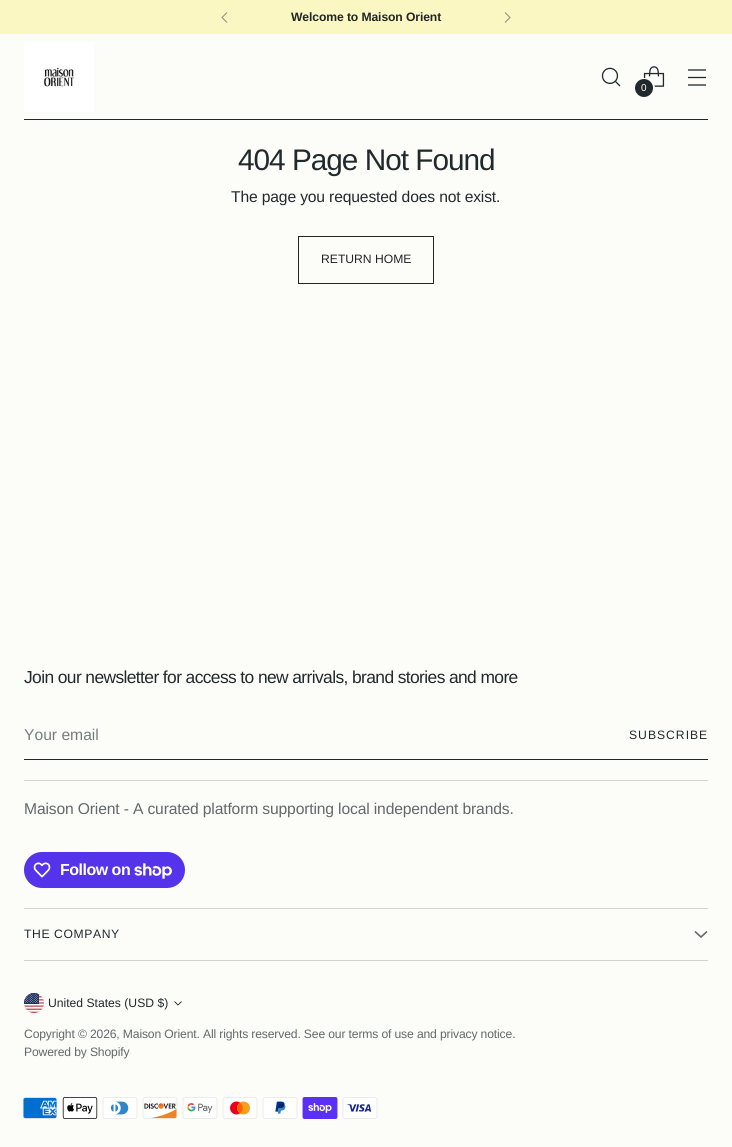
import math
import cairocffi as cairo

surface = cairo.ImageSurface(cairo.FORMAT_RGB24, 732, 1147)
ctx = cairo.Context(surface)
options = cairo.FontOptions()
options.set_hint_metrics(cairo.HINT_METRICS_OFF)
options.set_hint_style(cairo.HINT_STYLE_NONE)
ctx.set_font_options(options)
ctx.set_miter_limit(4)


def rgb(r, g, b):
    ctx.set_source_rgb(r / 255, g / 255, b / 255)


def face(family, size, italic, bold):
    ctx.select_font_face(family, cairo.FONT_SLANT_ITALIC if italic else cairo.FONT_SLANT_NORMAL, cairo.FONT_WEIGHT_BOLD if bold else cairo.FONT_WEIGHT_NORMAL)
    ctx.set_font_size(size)


def label(x, y, s):
    ctx.move_to(x, y)
    ctx.show_text(s)


def tracked(x, y, s, letter, word):
    ctx.move_to(x, y)
    for ch in s:
        ctx.show_text(ch)
        ctx.rel_move_to(letter + word * (ch == ' '), 0)


def rect(x, y, w, h):
    ctx.rectangle(x, y, w, h)
    ctx.fill()


def rrect(x, y, w, h, r):
    ctx.new_sub_path()
    for i, (u, v) in enumerate([(x + w - r, y + h - r), (x + r, y + h - r), (x + r, y + r), (x + w - r, y + r)]):
        ctx.arc(u, v, r, i * math.pi / 2, (i + 1) * math.pi / 2)
    ctx.close_path()


def image(path, x, y, w, h):
    ctx.save()
    ctx.set_source_surface(cairo.ImageSurface.create_from_png(path), x, y)
    ctx.rectangle(x, y, w, h)
    ctx.fill()
    ctx.restore()


rgb(252, 252, 249)
ctx.paint()
rgb(250, 247, 195)
rect(0, 0, 732, 34)
ctx.new_path()
ctx.move_to(227, 12.5)
ctx.line_to(222, 17.5)
ctx.line_to(227, 22.5)
rgb(143, 142, 117)
ctx.set_line_width(1)
ctx.stroke()
ctx.new_path()
ctx.move_to(505, 22.5)
ctx.line_to(510, 17.5)
ctx.line_to(505, 12.5)
ctx.stroke()
face('Liberation Sans', 12.15, 0, 1)
rgb(36, 37, 38)
tracked(291, 21, 'Welcome to Maison Orient', -0.1, 0)
rgb(34, 41, 45)
rect(24, 119, 684, 1)
image('image0.png', 24, 42, 70, 70)
image('image1.png', 601, 67, 20, 20)
ctx.new_path()
ctx.move_to(688, 77.5)
ctx.line_to(706, 77.5)
ctx.move_to(688, 70)
ctx.line_to(706, 70)
ctx.move_to(688, 85)
ctx.line_to(706, 85)
ctx.set_line_width(1.3)
ctx.stroke()
image('image2.png', 643, 66, 22, 21)
ctx.arc(644.5, 88.5, 9.5, 0, 2 * math.pi)
rgb(252, 252, 249)
ctx.set_line_width(2)
ctx.stroke()
rgb(34, 41, 45)
ctx.arc(644, 88, 9, 0, 2 * math.pi)
ctx.fill()
face('Liberation Sans', 10, 0, 0)
rgb(252, 252, 249)
tracked(641, 91, '0', -0.15, 0)
face('Liberation Sans', 29.75, 0, 0)
rgb(34, 41, 45)
tracked(238, 170, '404 Page Not Found', -1, 0)
face('Liberation Sans', 15.65, 0, 0)
tracked(231, 202, 'The page you requested does not exist.', -0.15, 0)
ctx.rectangle(298.5, 236.5, 135, 47)
rgb(36, 37, 38)
ctx.set_line_width(1)
ctx.stroke()
face('Liberation Sans', 12.15, 0, 0)
label(321, 263, 'RETURN HOME')
rgb(208, 210, 208)
rect(24, 780, 684, 1)
face('Liberation Sans', 17.4, 0, 0)
rgb(34, 41, 45)
tracked(24, 683, 'Join our newsletter for access to new arrivals, brand stories and more', -0.6, 0)
rect(24, 759, 684, 1)
face('Liberation Sans', 15.65, 0, 0)
rgb(121, 125, 127)
label(24, 740, 'Your email')
face('Liberation Sans', 12.15, 0, 0)
rgb(34, 41, 45)
tracked(629, 739, 'SUBSCRIBE', 1, 0)
rgb(208, 210, 208)
rect(24, 908, 684, 1)
face('Liberation Sans', 15.65, 0, 0)
rgb(99, 104, 106)
tracked(24, 814, 'Maison Orient - A curated platform supporting local independent brands.', -0.15, 0)
rgb(84, 51, 235)
rrect(24, 852, 161, 36, 18)
ctx.fill()
image('image3.png', 33, 862, 18, 16)
face('Liberation Sans', 16, 0, 1)
rgb(255, 255, 255)
tracked(60, 875, 'Follow on', -0.5, 0)
image('image4.png', 134, 863, 38, 16)
rgb(208, 210, 208)
rect(24, 960, 684, 1)
face('Liberation Sans', 12.15, 0, 0)
rgb(34, 41, 45)
tracked(24, 938, 'THE COMPANY', 0.6, 0)
ctx.new_path()
ctx.move_to(695, 931.5)
ctx.line_to(701, 937)
ctx.line_to(707, 931.5)
rgb(99, 104, 106)
ctx.set_line_width(1.6)
ctx.stroke()
image('image5.png', 24, 993, 20, 20)
rgb(34, 41, 45)
label(48, 1007, 'United States (USD $)')
ctx.new_path()
ctx.move_to(174.5, 1001.5)
ctx.line_to(178, 1005)
ctx.line_to(181.5, 1001.5)
ctx.set_line_width(0.9)
ctx.stroke()
rgb(99, 104, 106)
tracked(24, 1038, 'Copyright © 2026, Maison Orient. All rights reserved. See our terms of use and privacy notice.', -0.15, 0)
tracked(24, 1056, 'Powered by Shopify', -0.15, 0)
image('image6.png', 22, 1097, 36, 22)
image('image7.png', 62, 1097, 36, 22)
image('image8.png', 102, 1097, 36, 22)
image('image9.png', 142, 1097, 36, 22)
image('image10.png', 182, 1097, 36, 22)
image('image11.png', 222, 1097, 36, 22)
image('image12.png', 262, 1097, 36, 22)
image('image13.png', 302, 1097, 36, 22)
image('image14.png', 342, 1097, 36, 22)
surface.write_to_png('render.png')
